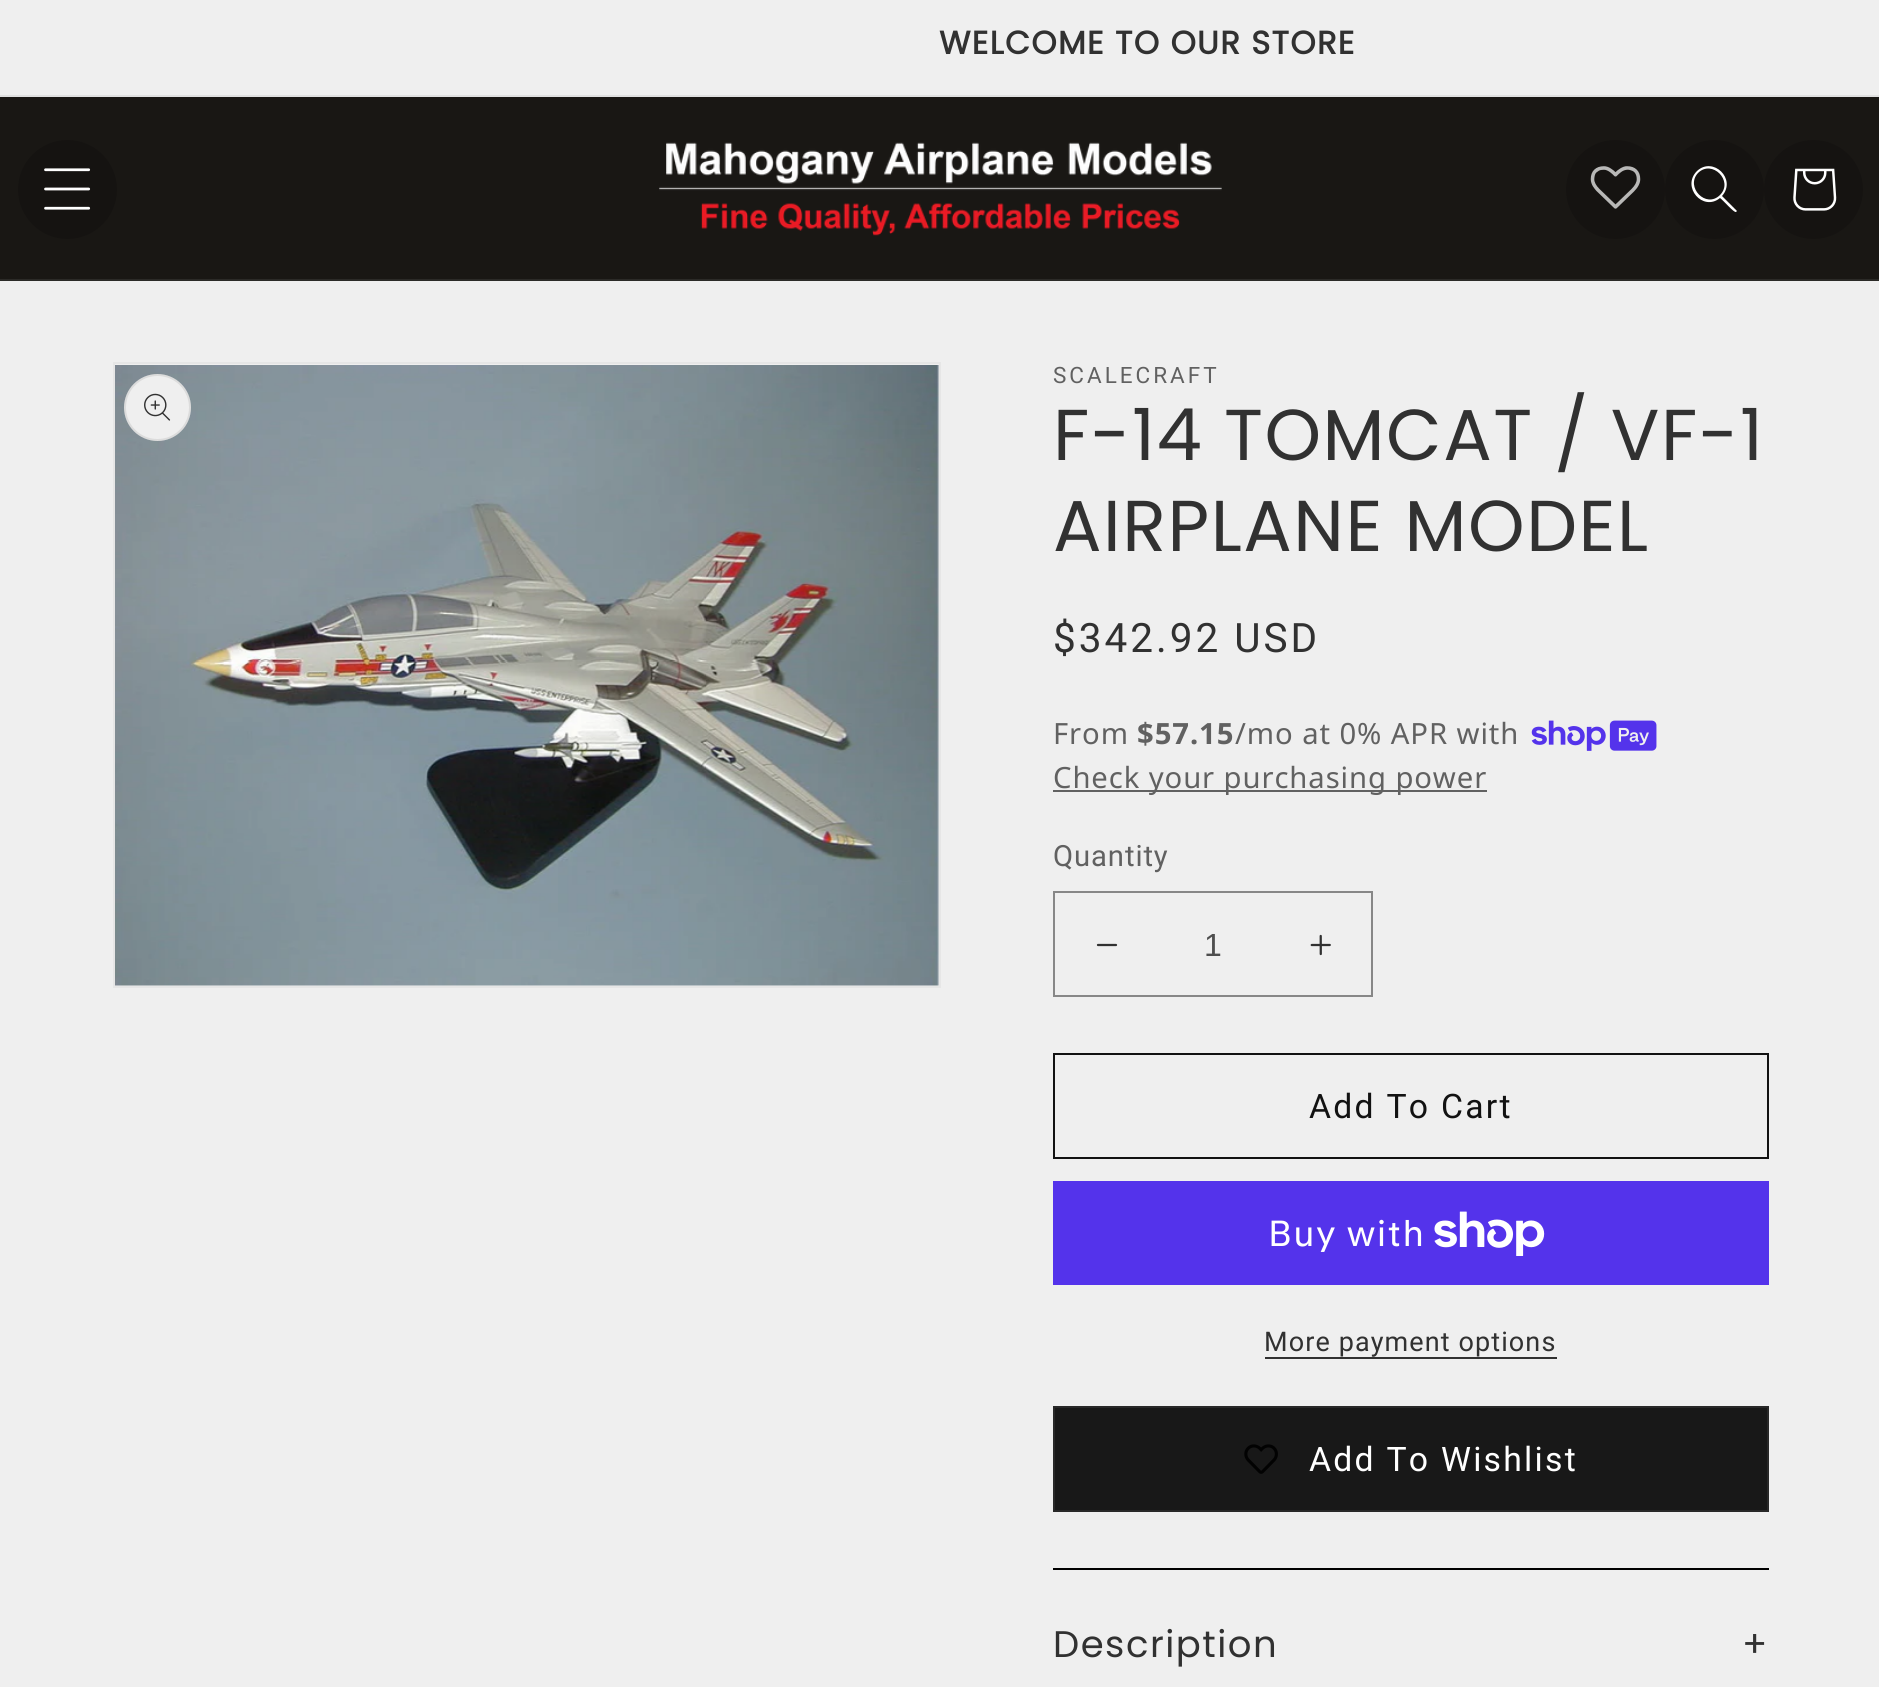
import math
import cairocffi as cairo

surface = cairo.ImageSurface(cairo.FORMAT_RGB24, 1879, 1687)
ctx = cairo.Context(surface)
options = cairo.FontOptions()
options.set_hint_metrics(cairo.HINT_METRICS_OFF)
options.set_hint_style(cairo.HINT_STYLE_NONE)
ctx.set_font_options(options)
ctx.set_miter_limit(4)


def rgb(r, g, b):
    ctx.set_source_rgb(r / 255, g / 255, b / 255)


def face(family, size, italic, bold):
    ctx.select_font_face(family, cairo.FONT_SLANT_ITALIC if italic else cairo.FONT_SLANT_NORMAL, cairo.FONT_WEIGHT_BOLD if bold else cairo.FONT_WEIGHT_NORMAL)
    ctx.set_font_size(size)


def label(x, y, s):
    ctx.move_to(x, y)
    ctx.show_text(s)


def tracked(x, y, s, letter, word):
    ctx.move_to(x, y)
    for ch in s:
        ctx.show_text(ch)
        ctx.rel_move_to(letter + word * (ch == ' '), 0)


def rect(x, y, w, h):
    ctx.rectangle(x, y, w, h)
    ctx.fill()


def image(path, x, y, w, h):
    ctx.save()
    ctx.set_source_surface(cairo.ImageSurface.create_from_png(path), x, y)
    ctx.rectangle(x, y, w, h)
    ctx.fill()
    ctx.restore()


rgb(239, 239, 239)
ctx.paint()
rgb(224, 224, 224)
rect(0, 95, 1879, 2)
face('Poppins', 32.25, 0, 1)
rgb(49, 49, 49)
tracked(939, 54, 'WELCOME TO OUR STORE', 1.35, 0)
rgb(25, 23, 20)
rect(0, 97, 1879, 182)
rgb(43, 42, 39)
rect(0, 279, 1879, 2)
rgb(21, 19, 17)
ctx.new_path()
ctx.arc(67.5, 189.5, 49.5, 0, 2 * math.pi)
ctx.fill()
image('image0.png', 44, 168, 47, 42)
image('image1.png', 659, 142, 563, 94)
ctx.arc(1615.5, 189.5, 49.5, 0, 2 * math.pi)
ctx.fill()
image('image2.png', 1590, 166, 51, 43)
ctx.arc(1714.5, 189.5, 49.5, 0, 2 * math.pi)
ctx.fill()
rgb(255, 255, 255)
ctx.set_fill_rule(cairo.FILL_RULE_EVEN_ODD)
ctx.new_path()
ctx.move_to(1720, 195)
ctx.curve_to(1706, 209, 1685, 187, 1698, 173)
ctx.curve_to(1712, 159, 1734, 181, 1720, 195)
ctx.close_path()
ctx.move_to(1720, 198)
ctx.curve_to(1703, 212, 1681, 187, 1697, 171)
ctx.curve_to(1713, 156, 1737, 179, 1722, 196)
ctx.line_to(1737, 211)
ctx.line_to(1736, 212)
ctx.curve_to(1734, 213, 1723, 200, 1720, 198)
ctx.close_path()
ctx.fill()
rgb(21, 19, 17)
ctx.arc(1813.5, 189.5, 49.5, 0, 2 * math.pi)
ctx.fill()
image('image3.png', 1793, 168, 44, 43)
ctx.rectangle(114, 363, 826, 624)
rgb(230, 230, 230)
ctx.stroke()
image('image4.png', 115, 365, 824, 621)
rgb(239, 239, 239)
ctx.arc(157.5, 407.5, 33.5, 0, 2 * math.pi)
ctx.fill()
ctx.arc(157.5, 407.5, 32.5, 0, 2 * math.pi)
ctx.set_source_rgba(0.192, 0.192, 0.192, 0.1)
ctx.stroke()
image('image5.png', 144, 393, 27, 28)
face('Roboto', 22.5, 0, 0)
rgb(97, 97, 97)
tracked(1053, 383, 'SCALECRAFT', 3, 0)
face('Poppins', 72, 0, 0)
rgb(49, 49, 49)
tracked(1053, 460, 'F-14 TOMCAT / VF-1', 1.5, 0)
tracked(1053, 551, 'AIRPLANE MODEL', 1.5, 0)
face('Roboto', 40.5, 0, 0)
tracked(1053, 652, '$342.92 USD', 3, 0)
face('Noto Sans', 29.25, 0, 0)
rgb(97, 97, 97)
tracked(1053, 744, 'From', 0.9, 0)
face('Noto Sans', 29.25, 0, 1)
tracked(1137, 744, '$57.15', 0.9, 0)
face('Noto Sans', 29.25, 0, 0)
tracked(1235, 744, '/mo at 0% APR with', 0.9, 0)
image('image6.png', 1531, 720, 126, 31)
rect(1053, 790, 434, 2)
tracked(1053, 788, 'Check your purchasing power', 0.9, 0)
face('Roboto', 29.25, 0, 0)
tracked(1053, 866, 'Quantity', 0.9, 0)
image('image7.png', 1096, 943, 22, 4)
image('image8.png', 1310, 934, 21, 22)
ctx.rectangle(1054, 892, 318, 104)
rgb(135, 135, 135)
ctx.stroke()
face('Liberation Sans', 32, 0, 0)
rgb(78, 78, 78)
label(1204, 956, '1')
ctx.rectangle(1054, 1054, 714, 104)
rgb(18, 18, 18)
ctx.stroke()
face('Roboto', 33.75, 0, 0)
tracked(1309, 1118, 'Add To Cart', 2.25, 0)
rgb(84, 51, 235)
rect(1053, 1181, 716, 104)
face('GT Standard', 36, 0, 0)
rgb(255, 255, 255)
tracked(1268, 1246, 'Buy with', 1.35, 0)
image('image9.png', 1434, 1211, 111, 45)
face('Roboto', 27, 0, 0)
rgb(49, 49, 49)
tracked(1264, 1351, 'More payment options', 1.1, 0)
rect(1265, 1357, 292, 2)
rgb(24, 24, 24)
rect(1055, 1408, 712, 102)
image('image10.png', 1244, 1444, 34, 30)
ctx.rectangle(1054, 1407, 714, 104)
rgb(40, 40, 40)
ctx.stroke()
face('Roboto', 33.75, 0, 0)
rgb(255, 255, 255)
tracked(1309, 1471, 'Add To Wishlist', 2.25, 0)
rgb(0, 0, 0)
rect(1053, 1568, 716, 2)
face('Poppins', 37, 0, 0)
rgb(49, 49, 49)
tracked(1053, 1657, 'Description', 1.5, 0)
tracked(1742, 1657, '+', 1.5, 0)
surface.write_to_png('render.png')
